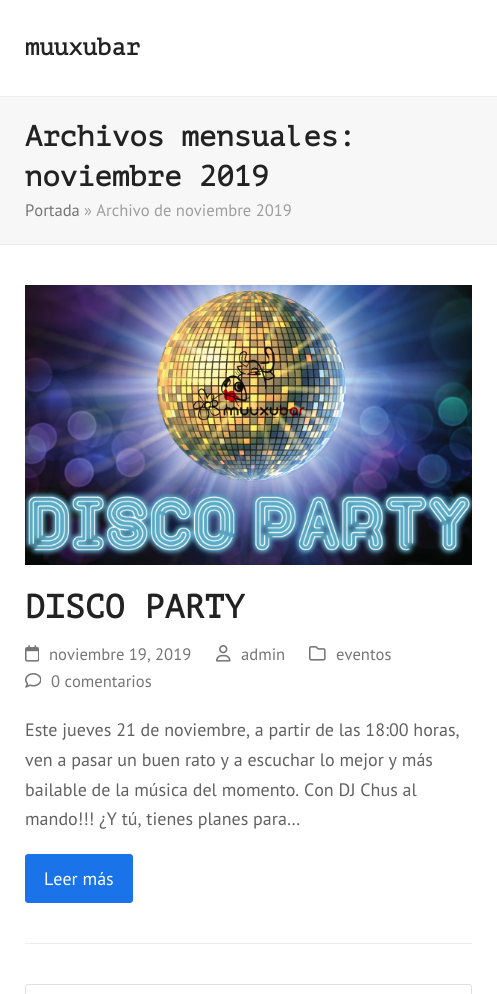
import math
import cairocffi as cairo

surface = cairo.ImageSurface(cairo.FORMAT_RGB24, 497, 994)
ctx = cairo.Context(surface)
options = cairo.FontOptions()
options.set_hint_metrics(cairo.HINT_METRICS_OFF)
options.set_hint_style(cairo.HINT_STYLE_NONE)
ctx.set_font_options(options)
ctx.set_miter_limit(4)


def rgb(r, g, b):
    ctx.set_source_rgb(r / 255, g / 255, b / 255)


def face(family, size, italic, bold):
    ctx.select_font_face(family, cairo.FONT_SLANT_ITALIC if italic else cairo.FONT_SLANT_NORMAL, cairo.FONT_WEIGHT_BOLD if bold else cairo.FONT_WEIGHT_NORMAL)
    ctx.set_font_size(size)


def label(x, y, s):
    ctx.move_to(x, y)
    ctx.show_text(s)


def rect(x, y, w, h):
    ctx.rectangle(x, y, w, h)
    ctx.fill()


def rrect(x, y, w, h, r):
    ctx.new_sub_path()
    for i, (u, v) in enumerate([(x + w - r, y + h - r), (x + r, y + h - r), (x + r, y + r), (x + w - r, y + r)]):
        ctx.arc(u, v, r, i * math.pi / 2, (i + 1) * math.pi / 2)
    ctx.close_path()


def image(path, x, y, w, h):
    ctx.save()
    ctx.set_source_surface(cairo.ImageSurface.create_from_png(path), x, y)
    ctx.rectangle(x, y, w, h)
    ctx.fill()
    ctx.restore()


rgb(255, 255, 255)
ctx.paint()
face('PT Mono', 24, 0, 1)
rgb(34, 34, 34)
label(25, 55, 'muuxubar')
rgb(247, 247, 247)
rect(0, 97, 497, 147)
rgb(238, 238, 238)
rect(0, 96, 497, 1)
rect(0, 244, 497, 1)
face('PT Mono', 29, 0, 1)
rgb(34, 34, 34)
label(25, 146, 'Archivos mensuales:')
label(25, 186, 'noviembre 2019')
face('PT Sans', 16.6, 0, 0)
rgb(117, 117, 117)
label(25, 216, 'Portada')
rgb(158, 158, 158)
label(84, 216, '» Archivo de noviembre 2019')
image('image0.png', 25, 285, 447, 280)
face('PT Mono', 33.25, 0, 1)
rgb(34, 34, 34)
label(25, 618, 'DISCO PARTY')
image('image1.png', 25, 645, 14, 17)
face('PT Sans', 16.6, 0, 0)
rgb(117, 117, 117)
label(49, 660, 'noviembre 19, 2019')
image('image2.png', 216, 645, 15, 17)
label(241, 660, 'admin')
image('image3.png', 309, 646, 17, 15)
label(336, 660, 'eventos')
image('image4.png', 25, 673, 16, 15)
label(51, 687, '0 comentarios')
face('PT Sans', 18, 0, 0)
rgb(97, 97, 97)
label(25, 736, 'Este jueves 21 de noviembre, a partir de las 18:00 horas,')
label(25, 766, 'ven a pasar un buen rato y a escuchar lo mejor y más')
label(25, 796, 'bailable de la música del momento. Con DJ Chus al')
label(25, 825, 'mando!!! ¿Y tú, tienes planes para…')
rgb(26, 115, 232)
rrect(25, 854, 108, 49, 3)
ctx.fill()
rgb(255, 255, 255)
label(44, 885, 'Leer más')
rgb(238, 238, 238)
rect(25, 943, 447, 1)
rrect(25.5, 984.5, 446, 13, 2.5)
rgb(224, 224, 224)
ctx.set_line_width(1)
ctx.stroke()
surface.write_to_png('render.png')
